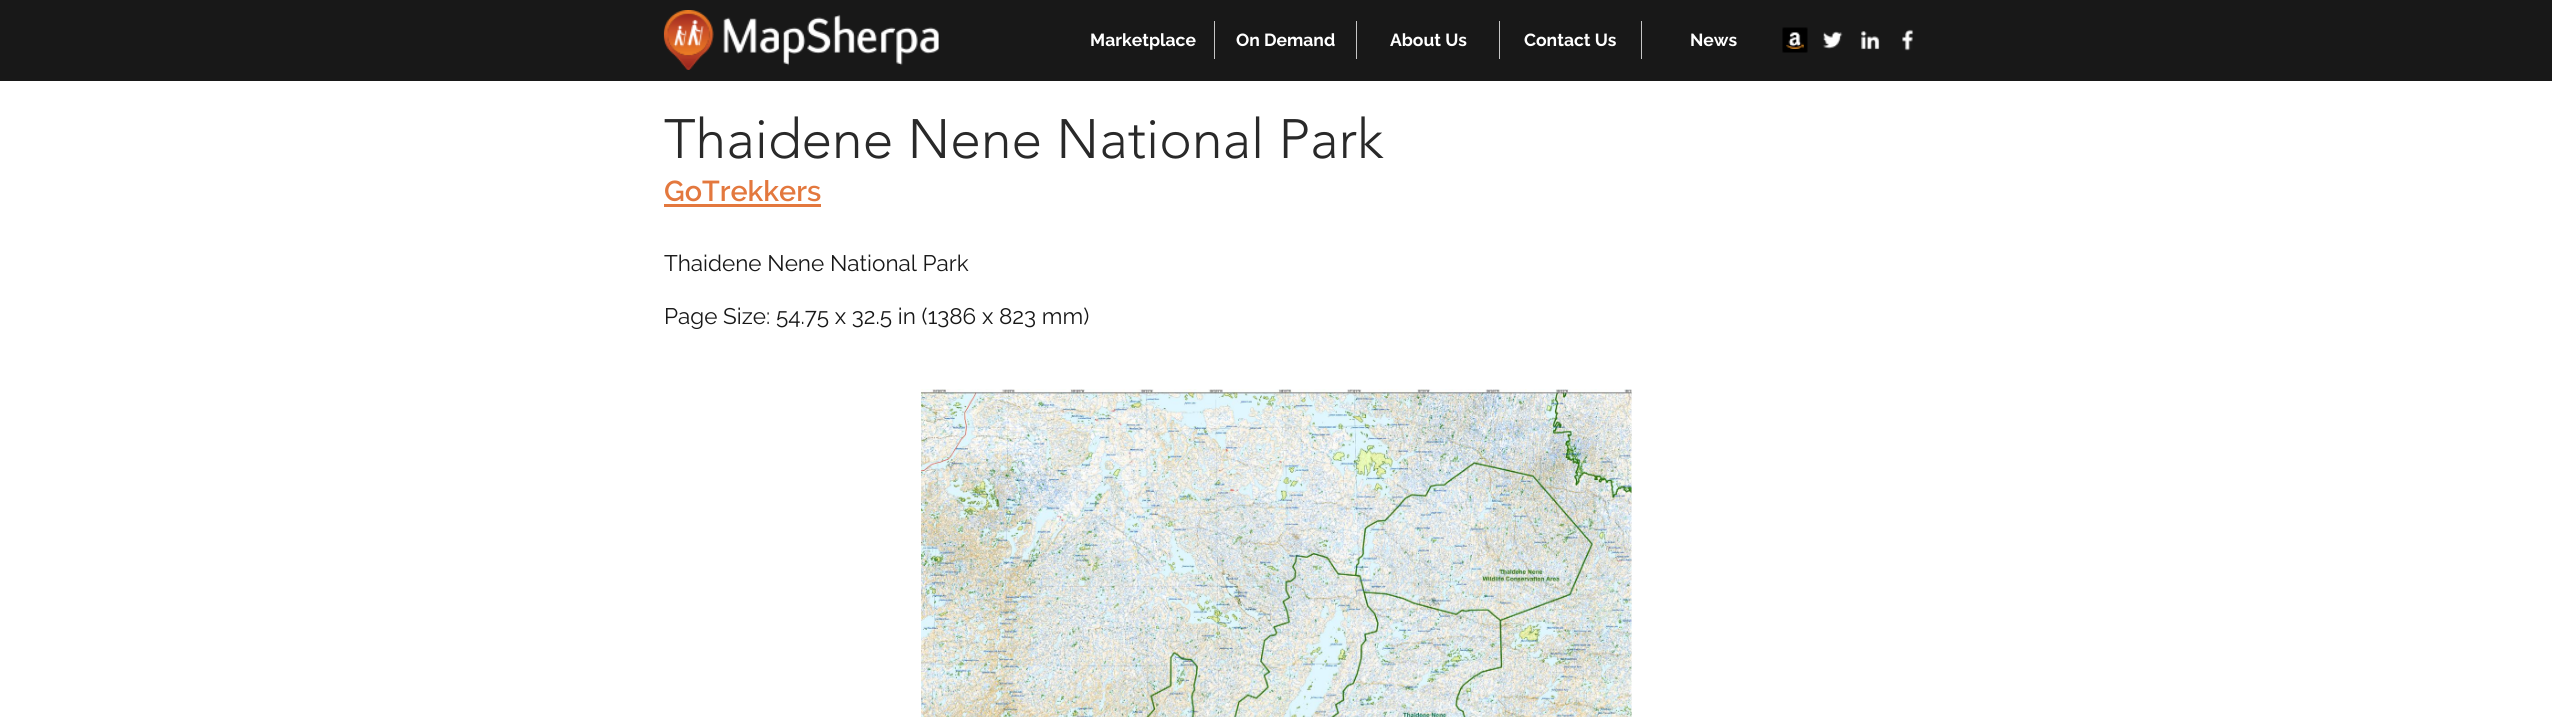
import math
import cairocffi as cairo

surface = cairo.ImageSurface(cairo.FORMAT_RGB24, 2552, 717)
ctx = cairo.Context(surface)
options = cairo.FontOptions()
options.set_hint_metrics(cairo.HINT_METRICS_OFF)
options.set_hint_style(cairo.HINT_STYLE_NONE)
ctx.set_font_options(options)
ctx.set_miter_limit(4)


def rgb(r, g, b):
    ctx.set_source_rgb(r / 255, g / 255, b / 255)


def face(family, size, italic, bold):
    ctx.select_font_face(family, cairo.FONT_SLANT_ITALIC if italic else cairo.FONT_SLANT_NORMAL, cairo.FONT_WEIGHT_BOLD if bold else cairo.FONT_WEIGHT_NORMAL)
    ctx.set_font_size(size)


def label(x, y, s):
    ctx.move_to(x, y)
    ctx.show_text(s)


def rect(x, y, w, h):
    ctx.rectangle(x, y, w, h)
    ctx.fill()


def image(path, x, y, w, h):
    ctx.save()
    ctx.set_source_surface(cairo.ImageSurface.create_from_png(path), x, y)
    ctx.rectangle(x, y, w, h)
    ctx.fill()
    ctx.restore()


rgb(255, 255, 255)
ctx.paint()
rgb(24, 24, 24)
rect(0, 0, 2552, 81)
image('image0.png', 663, 10, 276, 60)
face('Raleway', 17.5, 0, 1)
rgb(255, 255, 255)
label(1090, 46, 'Marketplace')
rgb(197, 197, 197)
rect(1214, 21, 1, 38)
rgb(255, 255, 255)
label(1236, 46, 'On Demand')
rgb(197, 197, 197)
rect(1356, 21, 1, 38)
rgb(255, 255, 255)
label(1390, 46, 'About Us')
rgb(197, 197, 197)
rect(1499, 21, 1, 38)
rgb(255, 255, 255)
label(1524, 46, 'Contact Us')
rgb(197, 197, 197)
rect(1641, 21, 1, 38)
rgb(255, 255, 255)
label(1690, 46, 'News')
image('image1.png', 1782, 27, 26, 26)
image('image2.png', 1822, 31, 21, 18)
image('image3.png', 1861, 31, 19, 19)
image('image4.png', 1902, 29, 12, 22)
face('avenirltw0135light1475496 Light', 55, 0, 0)
rgb(41, 41, 41)
label(664, 158, 'Thaidene Nene National Park')
face('Raleway SemiBold', 28.75, 0, 0)
rgb(227, 120, 62)
label(664, 201, 'GoTrekkers')
rect(664, 204, 157, 3)
face('Raleway', 22.5, 0, 0)
rgb(24, 24, 24)
label(664, 271, 'Thaidene Nene National Park')
label(664, 324, 'Page Size: 54.75 x 32.5 in (1386 x 823 mm)')
image('image5.png', 921, 389, 711, 328)
surface.write_to_png('render.png')
